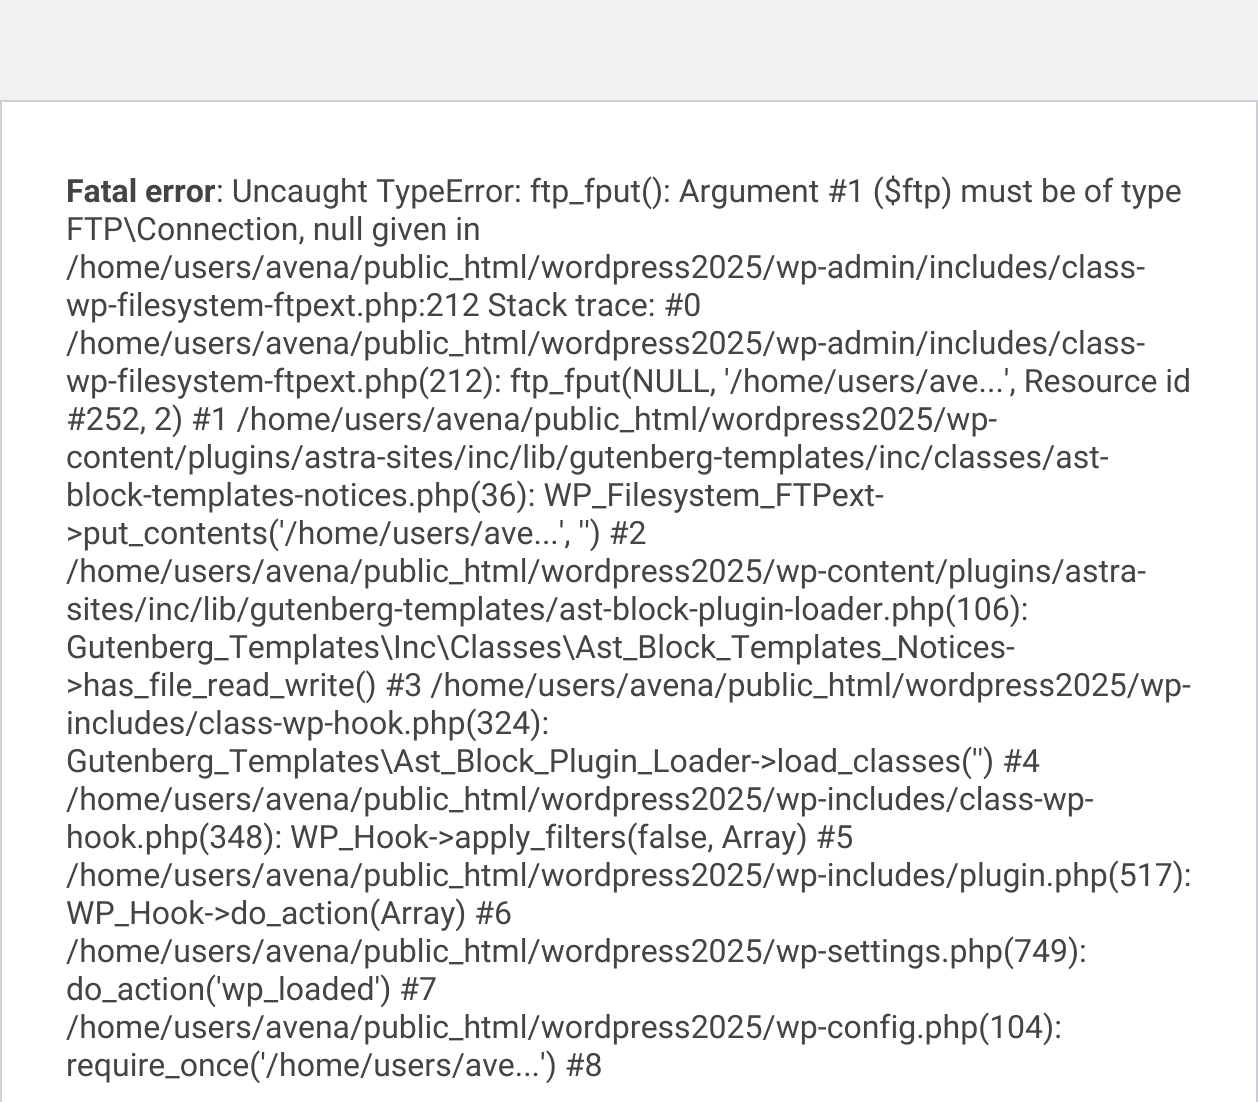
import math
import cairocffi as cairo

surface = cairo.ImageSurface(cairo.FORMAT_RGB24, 1258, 1102)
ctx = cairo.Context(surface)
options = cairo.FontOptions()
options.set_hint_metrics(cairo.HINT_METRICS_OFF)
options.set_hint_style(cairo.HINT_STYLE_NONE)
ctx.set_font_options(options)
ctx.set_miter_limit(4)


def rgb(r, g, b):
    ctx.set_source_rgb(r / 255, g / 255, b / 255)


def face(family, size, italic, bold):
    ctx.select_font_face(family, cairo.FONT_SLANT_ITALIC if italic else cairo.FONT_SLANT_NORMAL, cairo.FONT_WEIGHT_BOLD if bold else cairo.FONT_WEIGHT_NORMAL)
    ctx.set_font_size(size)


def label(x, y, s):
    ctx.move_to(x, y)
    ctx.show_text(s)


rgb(241, 241, 241)
ctx.paint()
rgb(255, 255, 255)
ctx.rectangle(1, 101, 1256, 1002)
ctx.fill_preserve()
rgb(204, 208, 212)
ctx.stroke()
face('Roboto', 32, 0, 1)
rgb(68, 68, 68)
label(66, 202, 'Fatal error')
face('Roboto', 32, 0, 0)
label(216, 202, ': Uncaught TypeError: ftp_fput(): Argument #1 ($ftp) must be of type')
label(66, 240, 'FTP\\Connection, null given in')
label(66, 278, '/home/users/avena/public_html/wordpress2025/wp-admin/includes/class-')
label(66, 316, 'wp-filesystem-ftpext.php:212 Stack trace: #0')
label(66, 354, '/home/users/avena/public_html/wordpress2025/wp-admin/includes/class-')
label(66, 392, 'wp-filesystem-ftpext.php(212): ftp_fput(NULL, \'/home/users/ave...\', Resource id')
label(66, 430, '#252, 2) #1 /home/users/avena/public_html/wordpress2025/wp-')
label(66, 468, 'content/plugins/astra-sites/inc/lib/gutenberg-templates/inc/classes/ast-')
label(66, 506, 'block-templates-notices.php(36): WP_Filesystem_FTPext-')
label(66, 544, '>put_contents(\'/home/users/ave...\', \'\') #2')
label(66, 582, '/home/users/avena/public_html/wordpress2025/wp-content/plugins/astra-')
label(66, 620, 'sites/inc/lib/gutenberg-templates/ast-block-plugin-loader.php(106):')
label(66, 658, 'Gutenberg_Templates\\Inc\\Classes\\Ast_Block_Templates_Notices-')
label(66, 696, '>has_file_read_write() #3 /home/users/avena/public_html/wordpress2025/wp-')
label(66, 734, 'includes/class-wp-hook.php(324):')
label(66, 772, 'Gutenberg_Templates\\Ast_Block_Plugin_Loader->load_classes(\'\') #4')
label(66, 810, '/home/users/avena/public_html/wordpress2025/wp-includes/class-wp-')
label(66, 848, 'hook.php(348): WP_Hook->apply_filters(false, Array) #5')
label(66, 886, '/home/users/avena/public_html/wordpress2025/wp-includes/plugin.php(517):')
label(66, 924, 'WP_Hook->do_action(Array) #6')
label(66, 962, '/home/users/avena/public_html/wordpress2025/wp-settings.php(749):')
label(66, 1000, 'do_action(\'wp_loaded\') #7')
label(66, 1038, '/home/users/avena/public_html/wordpress2025/wp-config.php(104):')
label(66, 1076, 'require_once(\'/home/users/ave...\') #8')
surface.write_to_png('render.png')
